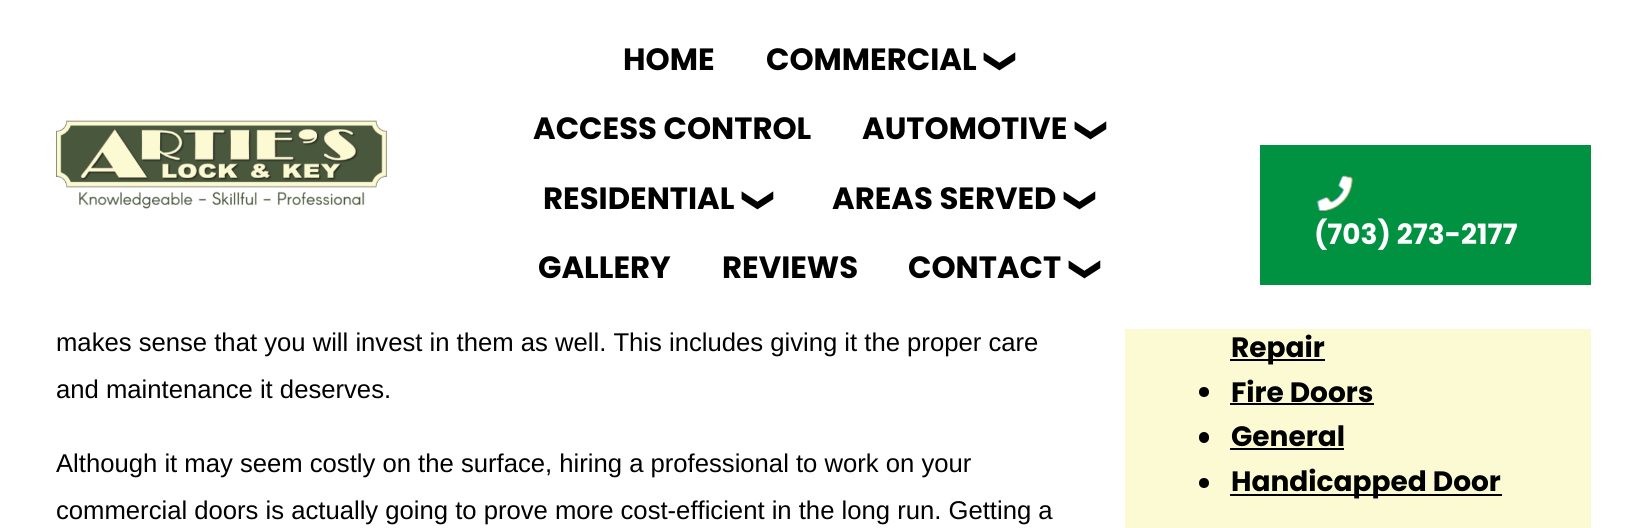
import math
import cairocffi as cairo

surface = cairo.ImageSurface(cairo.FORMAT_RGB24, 1646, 528)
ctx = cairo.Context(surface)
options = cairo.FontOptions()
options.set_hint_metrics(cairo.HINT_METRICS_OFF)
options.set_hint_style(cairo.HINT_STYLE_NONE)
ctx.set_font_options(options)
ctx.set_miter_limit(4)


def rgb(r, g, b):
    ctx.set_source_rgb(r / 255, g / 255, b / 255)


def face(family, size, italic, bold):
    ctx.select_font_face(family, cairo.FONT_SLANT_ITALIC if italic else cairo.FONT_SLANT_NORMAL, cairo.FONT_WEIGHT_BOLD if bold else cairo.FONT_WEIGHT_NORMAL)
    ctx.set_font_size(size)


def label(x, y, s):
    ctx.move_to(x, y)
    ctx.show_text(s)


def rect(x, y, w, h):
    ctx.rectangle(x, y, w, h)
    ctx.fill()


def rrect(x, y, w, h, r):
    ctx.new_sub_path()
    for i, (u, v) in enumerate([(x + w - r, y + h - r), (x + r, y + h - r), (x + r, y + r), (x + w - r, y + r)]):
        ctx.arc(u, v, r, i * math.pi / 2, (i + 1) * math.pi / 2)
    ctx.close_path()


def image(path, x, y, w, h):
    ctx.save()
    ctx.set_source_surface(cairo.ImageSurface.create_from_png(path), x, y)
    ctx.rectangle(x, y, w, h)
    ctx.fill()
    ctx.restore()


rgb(255, 255, 255)
ctx.paint()
image('image0.png', 56, 120, 331, 89)
face('Poppins', 30.75, 0, 1)
rgb(0, 0, 0)
label(623, 70, 'HOME')
label(766, 70, 'COMMERCIAL')
face('DejaVu Sans', 30.75, 0, 1)
ctx.save()
ctx.translate(991, 48)
ctx.rotate(90 * math.pi / 180)
label(0, 0, '❯')
ctx.restore()
face('Poppins', 30.75, 0, 1)
label(533, 139, 'ACCESS CONTROL')
label(862, 139, 'AUTOMOTIVE')
face('DejaVu Sans', 30.75, 0, 1)
ctx.save()
ctx.translate(1082, 117)
ctx.rotate(90 * math.pi / 180)
label(0, 0, '❯')
ctx.restore()
face('Poppins', 30.75, 0, 1)
label(543, 209, 'RESIDENTIAL')
face('DejaVu Sans', 30.75, 0, 1)
ctx.save()
ctx.translate(749, 187)
ctx.rotate(90 * math.pi / 180)
label(0, 0, '❯')
ctx.restore()
face('Poppins', 30.75, 0, 1)
label(832, 209, 'AREAS SERVED')
face('DejaVu Sans', 30.75, 0, 1)
ctx.save()
ctx.translate(1071, 187)
ctx.rotate(90 * math.pi / 180)
label(0, 0, '❯')
ctx.restore()
face('Poppins', 30.75, 0, 1)
label(538, 278, 'GALLERY')
label(722, 278, 'REVIEWS')
label(908, 278, 'CONTACT')
face('DejaVu Sans', 30.75, 0, 1)
ctx.save()
ctx.translate(1076, 256)
ctx.rotate(90 * math.pi / 180)
label(0, 0, '❯')
ctx.restore()
rgb(0, 146, 65)
rect(1260, 145, 331, 140)
image('image1.png', 1316, 174, 37, 38)
face('Poppins', 28, 0, 1)
rgb(255, 255, 255)
label(1314, 244, '(703) 273-2177')
face('Liberation Sans', 25.65, 0, 0)
rgb(0, 0, 0)
label(56, 351, 'makes sense that you will invest in them as well. This includes giving it the proper care')
label(56, 398, 'and maintenance it deserves.')
label(56, 472, 'Although it may seem costly on the surface, hiring a professional to work on your')
label(56, 519, 'commercial doors is actually going to prove more cost-efficient in the long run. Getting a')
rgb(251, 250, 210)
rect(1125, 329, 466, 199)
rgb(0, 0, 0)
rect(1230, 359, 95, 2)
face('Poppins', 28, 0, 1)
label(1231, 357, 'Repair')
ctx.new_path()
ctx.arc(1204, 392, 5, 0, 2 * math.pi)
ctx.fill()
label(1231, 402, 'Fire Doors')
rect(1230, 403, 144, 2)
rrect(1199, 432, 10, 11, 5)
ctx.fill()
label(1231, 446, 'General')
rect(1230, 448, 114, 2)
ctx.new_path()
ctx.arc(1204, 483, 5, 0, 2 * math.pi)
ctx.fill()
rect(1230, 494, 272, 2)
label(1231, 491, 'Handicapped Door')
surface.write_to_png('render.png')
